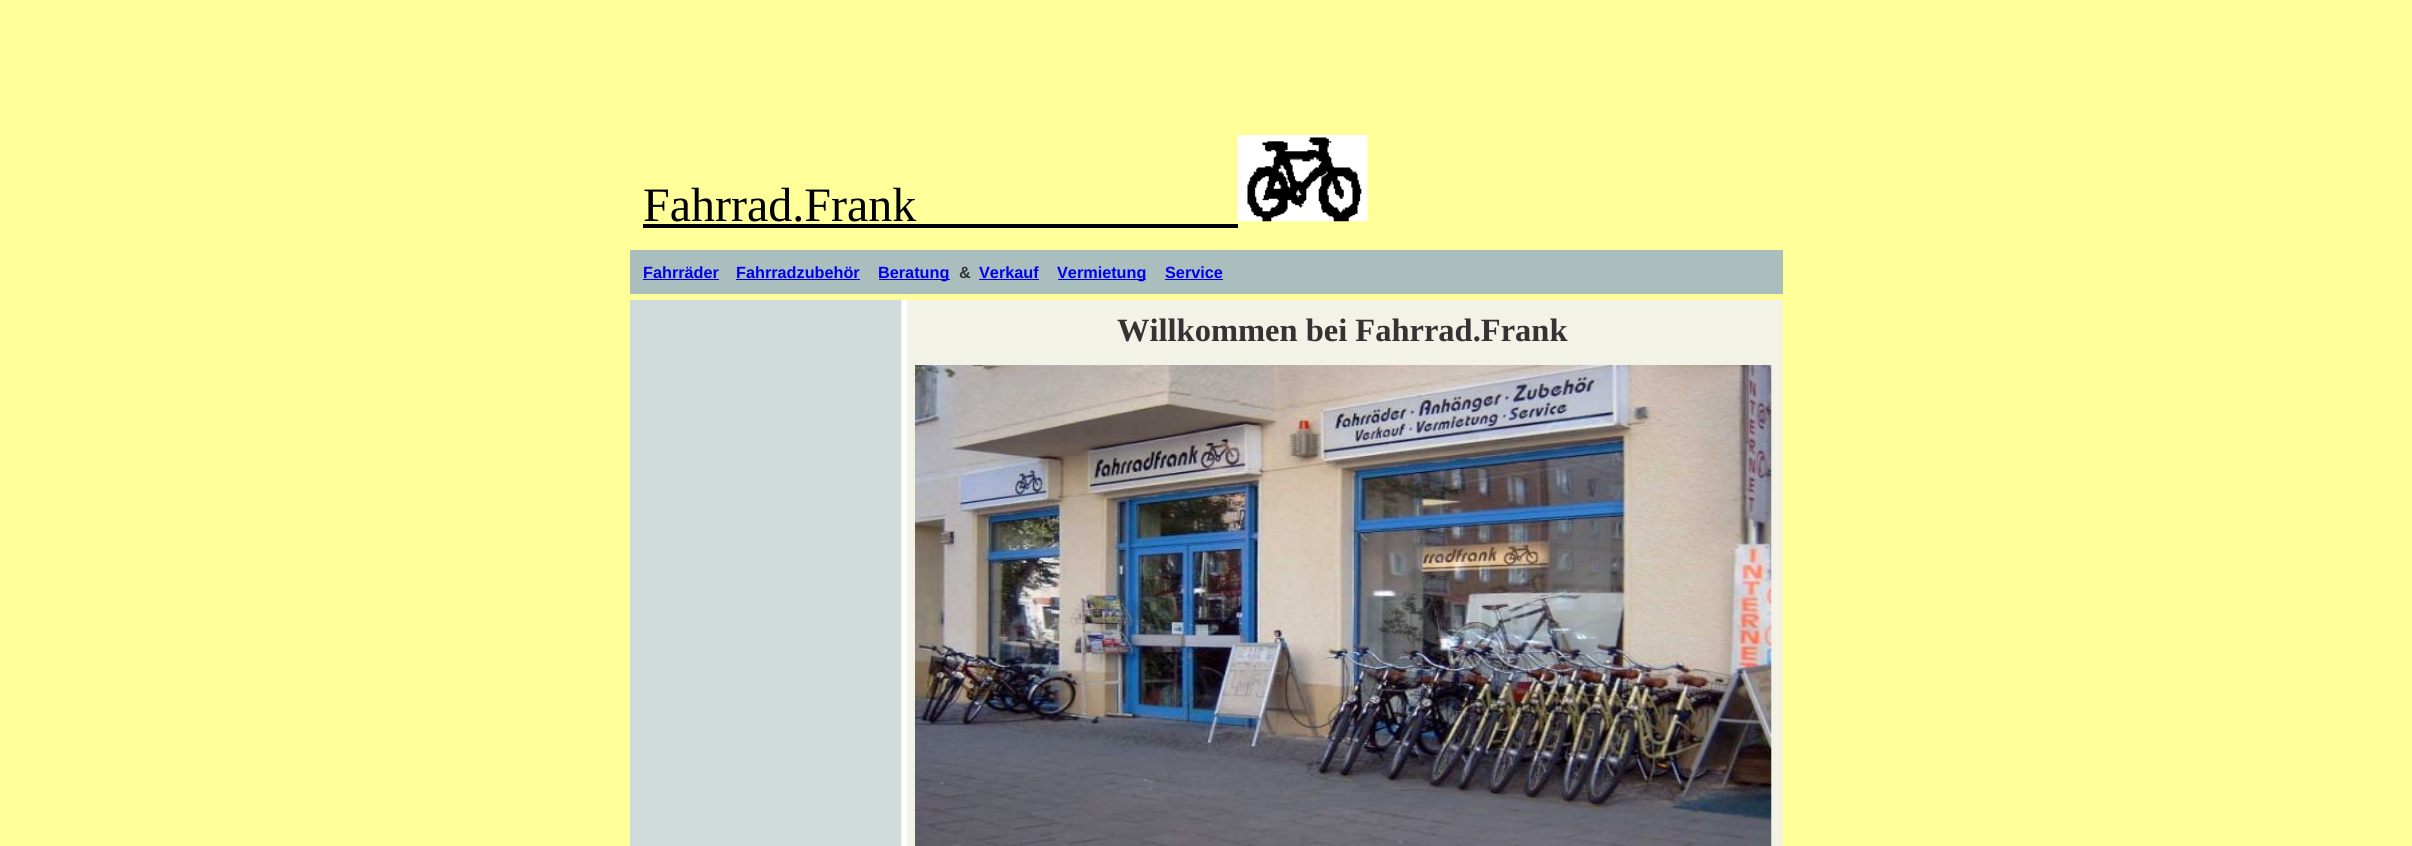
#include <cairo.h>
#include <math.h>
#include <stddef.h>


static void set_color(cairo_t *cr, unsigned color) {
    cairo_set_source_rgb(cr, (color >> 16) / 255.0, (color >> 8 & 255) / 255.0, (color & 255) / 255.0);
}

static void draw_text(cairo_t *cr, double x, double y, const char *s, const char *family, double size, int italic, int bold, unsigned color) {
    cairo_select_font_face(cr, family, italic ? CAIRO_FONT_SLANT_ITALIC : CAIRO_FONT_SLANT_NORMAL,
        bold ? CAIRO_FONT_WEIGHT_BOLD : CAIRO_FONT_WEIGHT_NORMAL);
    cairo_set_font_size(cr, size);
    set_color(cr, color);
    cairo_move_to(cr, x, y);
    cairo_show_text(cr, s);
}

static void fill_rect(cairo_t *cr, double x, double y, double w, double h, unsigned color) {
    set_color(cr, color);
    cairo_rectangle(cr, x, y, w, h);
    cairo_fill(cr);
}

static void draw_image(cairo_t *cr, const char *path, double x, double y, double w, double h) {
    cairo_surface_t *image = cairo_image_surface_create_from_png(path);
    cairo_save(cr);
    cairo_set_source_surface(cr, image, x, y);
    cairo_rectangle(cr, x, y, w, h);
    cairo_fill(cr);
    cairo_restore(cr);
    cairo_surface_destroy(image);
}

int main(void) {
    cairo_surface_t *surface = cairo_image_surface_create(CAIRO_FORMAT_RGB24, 2412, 846);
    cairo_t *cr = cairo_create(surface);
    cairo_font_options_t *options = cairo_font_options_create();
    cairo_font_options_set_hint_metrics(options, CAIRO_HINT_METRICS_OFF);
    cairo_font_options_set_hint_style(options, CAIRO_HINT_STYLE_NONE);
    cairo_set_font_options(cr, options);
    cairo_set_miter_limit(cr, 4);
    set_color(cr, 0xFFFF99);
    cairo_paint(cr);
    draw_text(cr, 643, 221, "Fahrrad.Frank", "Liberation Serif", 48, 0, 0, 0x000000);
    fill_rect(cr, 643, 224, 595, 4, 0x000000);
    draw_image(cr, "assets/img1.png", 1237, 135, 131, 87);
    fill_rect(cr, 630, 250, 1153, 44, 0xABBEBE);
    draw_text(cr, 643, 278, "Fahrräder", "Liberation Sans", 16.25, 0, 1, 0x0000EE);
    fill_rect(cr, 643, 279, 76, 1, 0x0000EE);
    draw_text(cr, 736, 278, "Fahrradzubehör", "Liberation Sans", 16.25, 0, 1, 0x0000EE);
    fill_rect(cr, 736, 279, 124, 1, 0x0000EE);
    fill_rect(cr, 879, 279, 71, 1, 0x0000EE);
    draw_text(cr, 878, 278, "Beratung", "Liberation Sans", 16.25, 0, 1, 0x0000EE);
    draw_text(cr, 959, 278, "&", "Liberation Sans", 16.25, 0, 1, 0x333333);
    draw_text(cr, 979, 278, "Verkauf", "Liberation Sans", 16.25, 0, 1, 0x0000EE);
    fill_rect(cr, 979, 279, 60, 1, 0x0000EE);
    fill_rect(cr, 1058, 279, 88, 1, 0x0000EE);
    draw_text(cr, 1057, 278, "Vermietung", "Liberation Sans", 16.25, 0, 1, 0x0000EE);
    draw_text(cr, 1165, 278, "Service", "Liberation Sans", 16.25, 0, 1, 0x0000EE);
    fill_rect(cr, 1165, 279, 58, 1, 0x0000EE);
    draw_image(cr, "assets/img2.png", 630, 300, 1153, 546);
    draw_text(cr, 1117, 341, "Willkommen bei Fahrrad.Frank", "Liberation Serif", 32.5, 0, 1, 0x333333);
    draw_image(cr, "assets/img3.png", 915, 365, 857, 481);
    cairo_surface_write_to_png(surface, "output.png");
    cairo_font_options_destroy(options);
    cairo_destroy(cr);
    cairo_surface_destroy(surface);
    return 0;
}
